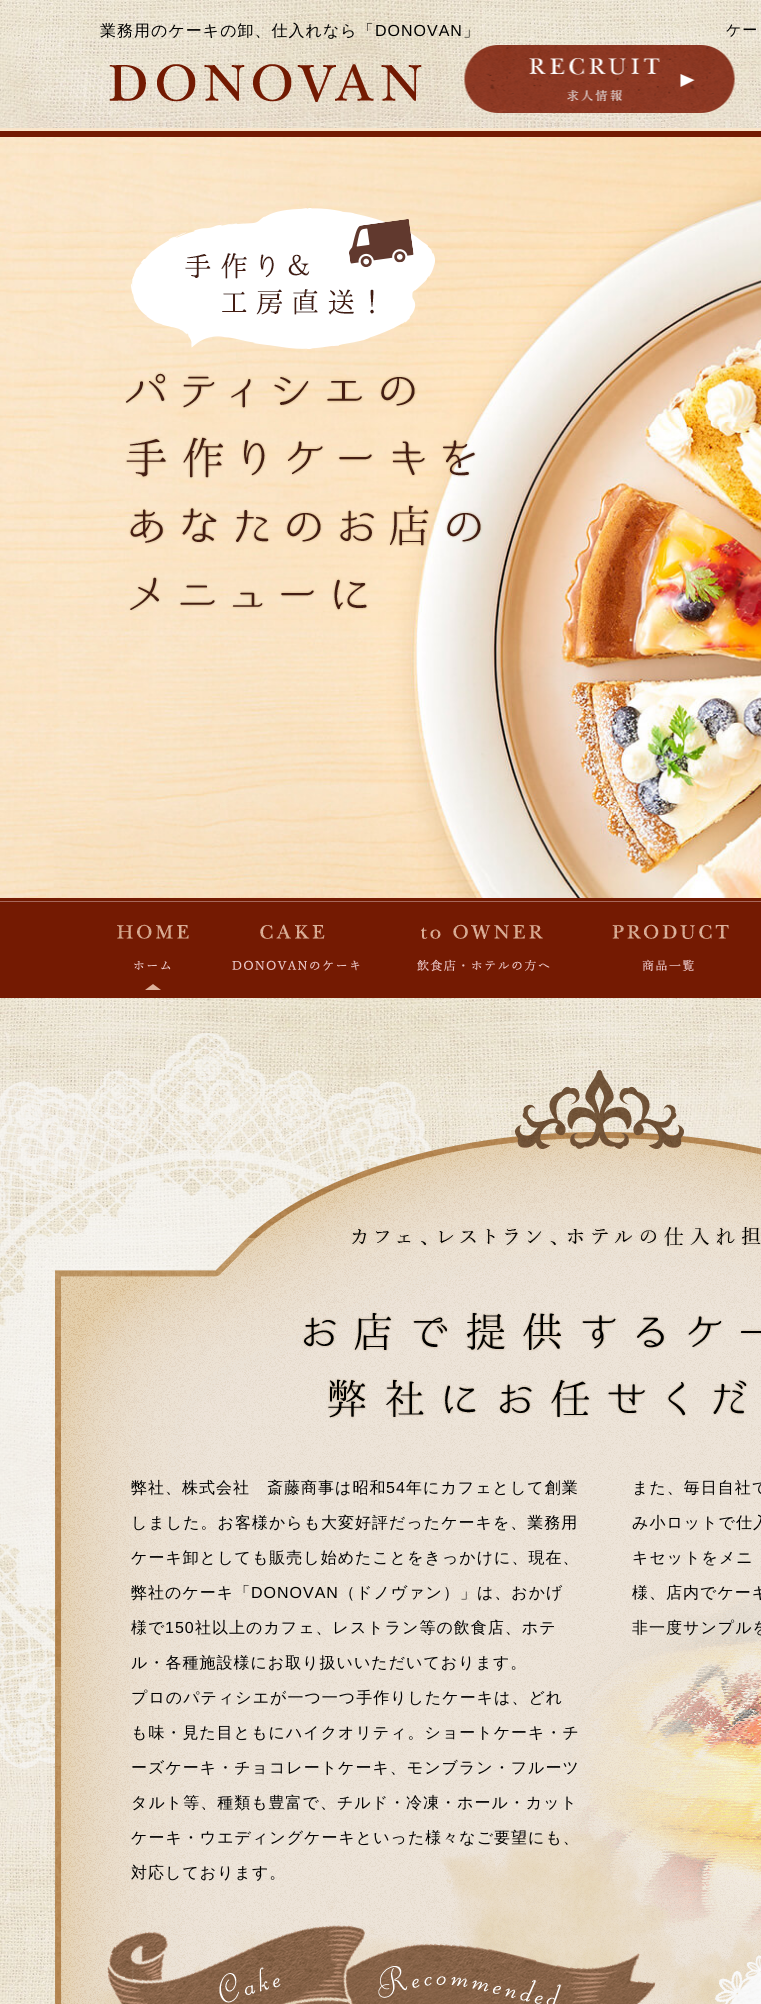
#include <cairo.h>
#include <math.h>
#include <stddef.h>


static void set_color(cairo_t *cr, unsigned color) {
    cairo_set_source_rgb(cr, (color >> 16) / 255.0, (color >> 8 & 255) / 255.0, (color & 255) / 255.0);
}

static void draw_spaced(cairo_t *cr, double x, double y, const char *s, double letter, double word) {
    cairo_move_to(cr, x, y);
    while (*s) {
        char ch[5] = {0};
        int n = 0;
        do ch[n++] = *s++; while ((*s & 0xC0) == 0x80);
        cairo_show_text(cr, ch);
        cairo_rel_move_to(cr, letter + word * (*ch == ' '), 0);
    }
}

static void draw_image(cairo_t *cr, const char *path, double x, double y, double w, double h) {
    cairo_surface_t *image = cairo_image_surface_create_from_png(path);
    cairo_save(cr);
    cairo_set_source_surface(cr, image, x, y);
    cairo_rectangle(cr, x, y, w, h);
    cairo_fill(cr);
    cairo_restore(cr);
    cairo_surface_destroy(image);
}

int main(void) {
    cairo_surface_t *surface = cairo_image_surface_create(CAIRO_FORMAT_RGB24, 761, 2004);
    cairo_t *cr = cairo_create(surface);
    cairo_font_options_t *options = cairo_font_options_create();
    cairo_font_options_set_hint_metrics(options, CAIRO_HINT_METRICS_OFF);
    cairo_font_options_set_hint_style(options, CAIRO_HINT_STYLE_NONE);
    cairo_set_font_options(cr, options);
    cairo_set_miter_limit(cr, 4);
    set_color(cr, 0xFFFFFF);
    cairo_paint(cr);
    draw_image(cr, "assets/img1.png", 0, 0, 761, 2004);
    draw_image(cr, "assets/img2.png", 0, 898, 761, 100);
    cairo_select_font_face(cr, "WenQuanYi Zen Hei Medium", CAIRO_FONT_SLANT_NORMAL, CAIRO_FONT_WEIGHT_NORMAL);
    cairo_set_font_size(cr, 16);
    set_color(cr, 0x000000);
    draw_spaced(cr, 100, 36, "業務用のケーキの卸、仕入れなら「", 1, 0);
    cairo_select_font_face(cr, "Liberation Sans", CAIRO_FONT_SLANT_NORMAL, CAIRO_FONT_WEIGHT_NORMAL);
    draw_spaced(cr, 375, 36, "DONOVAN", 1, 0);
    cairo_select_font_face(cr, "WenQuanYi Zen Hei Medium", CAIRO_FONT_SLANT_NORMAL, CAIRO_FONT_WEIGHT_NORMAL);
    draw_spaced(cr, 463, 36, "」", 1, 0);
    cairo_set_font_size(cr, 15);
    draw_spaced(cr, 726, 35, "ケー", 1, 0);
    draw_image(cr, "assets/img3.png", 109, 64, 313, 38);
    draw_image(cr, "assets/img4.png", 464, 45, 271, 68);
    draw_image(cr, "assets/img5.png", 117, 924, 72, 66);
    draw_image(cr, "assets/img6.png", 232, 924, 128, 47);
    draw_image(cr, "assets/img7.png", 417, 924, 133, 48);
    draw_image(cr, "assets/img8.png", 612, 924, 117, 47);
    draw_image(cr, "assets/img9.png", 0, 128, 761, 9);
    draw_image(cr, "assets/img10.png", 0, 137, 761, 761);
    draw_image(cr, "assets/img11.png", 125, 208, 358, 403);
    draw_image(cr, "assets/img12.png", 0, 1033, 431, 736);
    draw_image(cr, "assets/img13.png", 55, 1070, 706, 934);
    draw_image(cr, "assets/img14.png", 302, 1226, 459, 193);
    cairo_set_font_size(cr, 16);
    draw_spaced(cr, 131, 1493, "弊社、株式会社　斎藤商事は昭和", 1, 0);
    cairo_select_font_face(cr, "Liberation Sans", CAIRO_FONT_SLANT_NORMAL, CAIRO_FONT_WEIGHT_NORMAL);
    draw_spaced(cr, 386, 1493, "54", 1, 0);
    cairo_select_font_face(cr, "WenQuanYi Zen Hei Medium", CAIRO_FONT_SLANT_NORMAL, CAIRO_FONT_WEIGHT_NORMAL);
    draw_spaced(cr, 406, 1493, "年にカフェとして創業", 1, 0);
    draw_spaced(cr, 131, 1528, "しました。お客様からも大変好評だったケーキを、業務用", 1, 0);
    draw_spaced(cr, 131, 1563, "ケーキ卸としても販売し始めたことをきっかけに、現在、", 1, 0);
    draw_spaced(cr, 131, 1598, "弊社のケーキ「", 1, 0);
    cairo_select_font_face(cr, "Liberation Sans", CAIRO_FONT_SLANT_NORMAL, CAIRO_FONT_WEIGHT_NORMAL);
    draw_spaced(cr, 251, 1598, "DONOVAN", 1, 0);
    cairo_select_font_face(cr, "WenQuanYi Zen Hei Medium", CAIRO_FONT_SLANT_NORMAL, CAIRO_FONT_WEIGHT_NORMAL);
    draw_spaced(cr, 339, 1598, "（ドノヴァン）」は、おかげ", 1, 0);
    draw_spaced(cr, 131, 1633, "様で", 1, 0);
    cairo_select_font_face(cr, "Liberation Sans", CAIRO_FONT_SLANT_NORMAL, CAIRO_FONT_WEIGHT_NORMAL);
    draw_spaced(cr, 165, 1633, "150", 1, 0);
    cairo_select_font_face(cr, "WenQuanYi Zen Hei Medium", CAIRO_FONT_SLANT_NORMAL, CAIRO_FONT_WEIGHT_NORMAL);
    draw_spaced(cr, 195, 1633, "社以上のカフェ、レストラン等の飲食店、ホテ", 1, 0);
    draw_spaced(cr, 131, 1668, "ル・各種施設様にお取り扱いいただいております。", 1, 0);
    draw_spaced(cr, 131, 1703, "プロのパティシエが一つ一つ手作りしたケーキは、どれ", 1, 0);
    draw_spaced(cr, 131, 1738, "も味・見た目ともにハイクオリティ。ショートケーキ・チ", 1, 0);
    draw_spaced(cr, 131, 1773, "ーズケーキ・チョコレートケーキ、モンブラン・フルーツ", 1, 0);
    draw_spaced(cr, 131, 1808, "タルト等、種類も豊富で、チルド・冷凍・ホール・カット", 1, 0);
    draw_spaced(cr, 131, 1843, "ケーキ・ウエディングケーキといった様々なご要望にも、", 1, 0);
    draw_spaced(cr, 131, 1878, "対応しております。", 1, 0);
    draw_spaced(cr, 632, 1493, "また、毎日自社で", 1, 0);
    draw_spaced(cr, 632, 1528, "み小ロットで仕入", 1, 0);
    draw_spaced(cr, 632, 1563, "キセットをメニ", 1, 0);
    draw_spaced(cr, 632, 1598, "様、店内でケーキ", 1, 0);
    draw_spaced(cr, 632, 1633, "非一度サンプルを", 1, 0);
    draw_image(cr, "assets/img15.png", 107, 1925, 549, 79);
    draw_image(cr, "assets/img16.png", 715, 1955, 46, 49);
    cairo_surface_write_to_png(surface, "output.png");
    cairo_font_options_destroy(options);
    cairo_destroy(cr);
    cairo_surface_destroy(surface);
    return 0;
}
